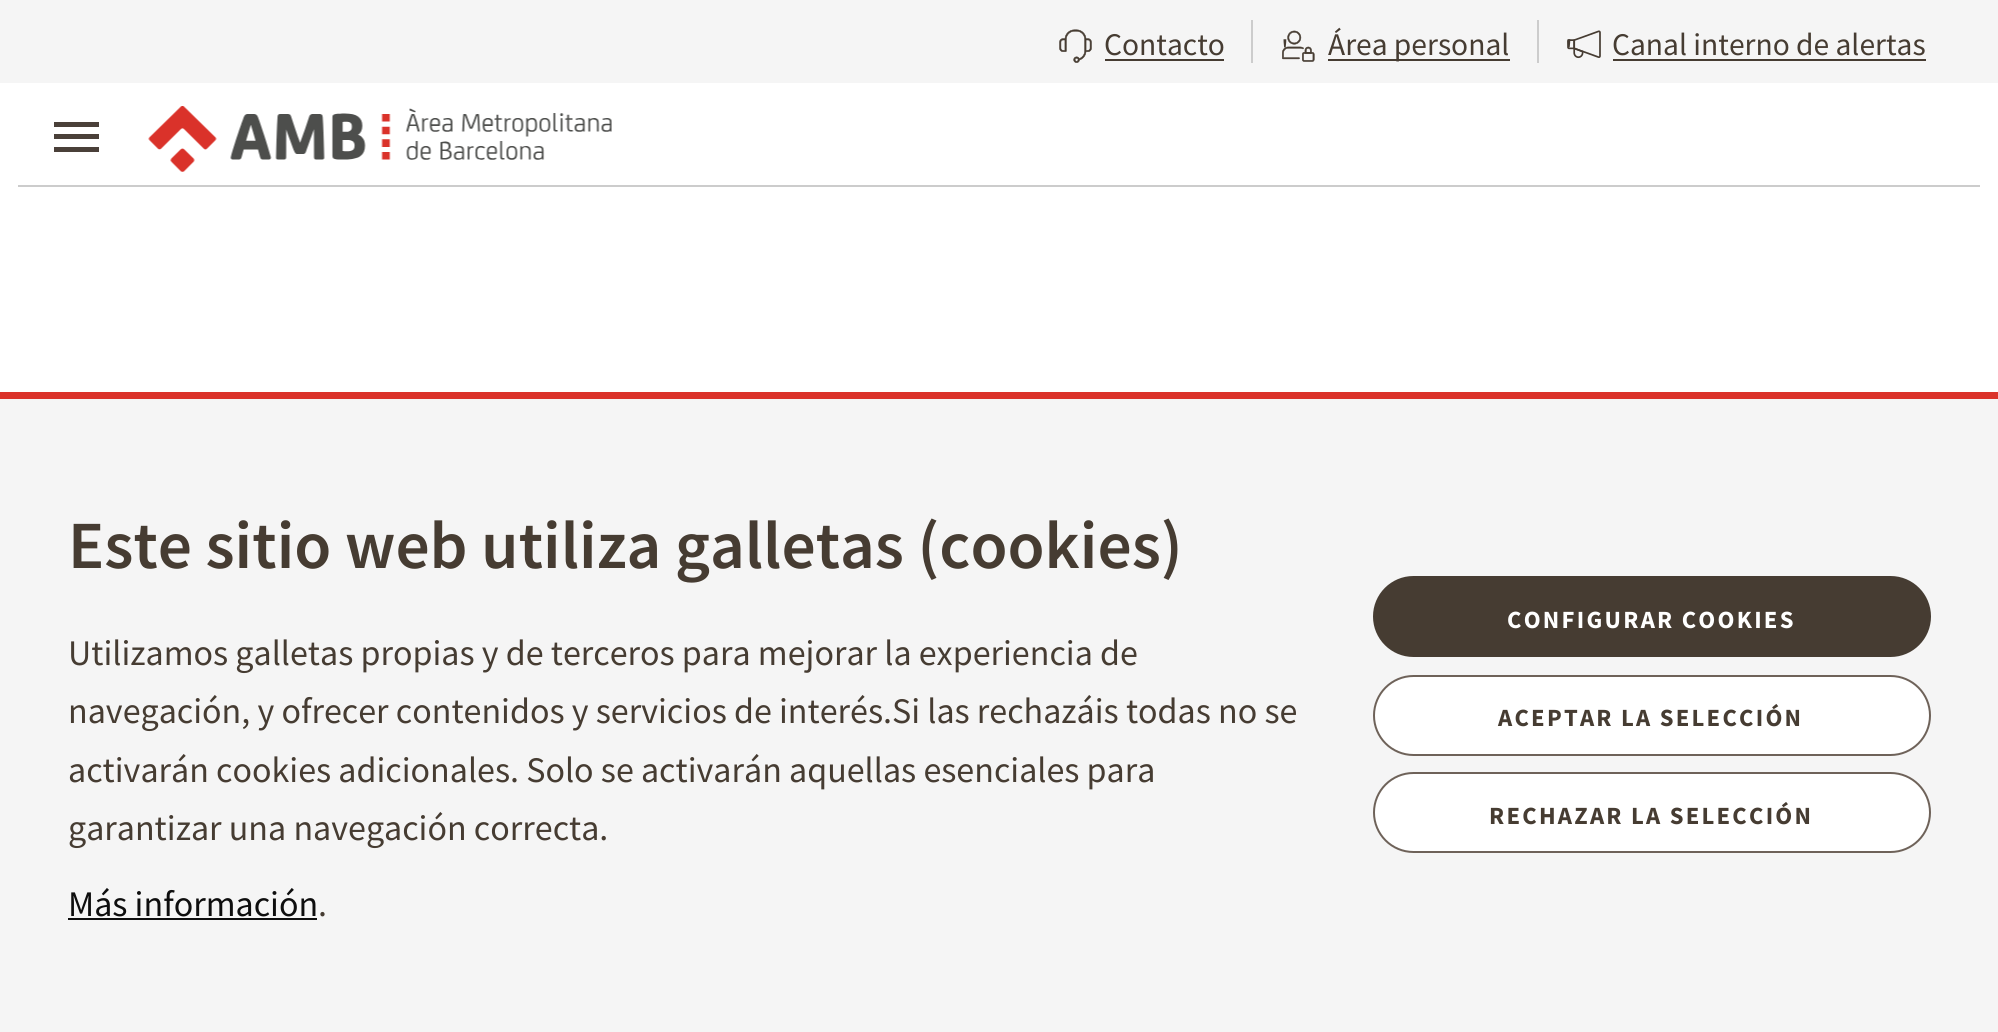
#include <cairo.h>
#include <math.h>
#include <stddef.h>


static void set_color(cairo_t *cr, unsigned color) {
    cairo_set_source_rgb(cr, (color >> 16) / 255.0, (color >> 8 & 255) / 255.0, (color & 255) / 255.0);
}

static void draw_text(cairo_t *cr, double x, double y, const char *s, const char *family, double size, int italic, int bold, unsigned color) {
    cairo_select_font_face(cr, family, italic ? CAIRO_FONT_SLANT_ITALIC : CAIRO_FONT_SLANT_NORMAL,
        bold ? CAIRO_FONT_WEIGHT_BOLD : CAIRO_FONT_WEIGHT_NORMAL);
    cairo_set_font_size(cr, size);
    set_color(cr, color);
    cairo_move_to(cr, x, y);
    cairo_show_text(cr, s);
}

static void draw_spaced(cairo_t *cr, double x, double y, const char *s, double letter, double word) {
    cairo_move_to(cr, x, y);
    while (*s) {
        char ch[5] = {0};
        int n = 0;
        do ch[n++] = *s++; while ((*s & 0xC0) == 0x80);
        cairo_show_text(cr, ch);
        cairo_rel_move_to(cr, letter + word * (*ch == ' '), 0);
    }
}

static void fill_rect(cairo_t *cr, double x, double y, double w, double h, unsigned color) {
    set_color(cr, color);
    cairo_rectangle(cr, x, y, w, h);
    cairo_fill(cr);
}

static void rounded_rect(cairo_t *cr, double x, double y, double w, double h, double r) {
    cairo_new_sub_path(cr);
    cairo_arc(cr, x + w - r, y + h - r, r, 0, M_PI / 2);
    cairo_arc(cr, x + r, y + h - r, r, M_PI / 2, M_PI);
    cairo_arc(cr, x + r, y + r, r, M_PI, 1.5 * M_PI);
    cairo_arc(cr, x + w - r, y + r, r, 1.5 * M_PI, 2 * M_PI);
    cairo_close_path(cr);
}

static void draw_image(cairo_t *cr, const char *path, double x, double y, double w, double h) {
    cairo_surface_t *image = cairo_image_surface_create_from_png(path);
    cairo_save(cr);
    cairo_set_source_surface(cr, image, x, y);
    cairo_rectangle(cr, x, y, w, h);
    cairo_fill(cr);
    cairo_restore(cr);
    cairo_surface_destroy(image);
}

int main(void) {
    cairo_surface_t *surface = cairo_image_surface_create(CAIRO_FORMAT_RGB24, 1998, 1032);
    cairo_t *cr = cairo_create(surface);
    cairo_font_options_t *options = cairo_font_options_create();
    cairo_font_options_set_hint_metrics(options, CAIRO_HINT_METRICS_OFF);
    cairo_font_options_set_hint_style(options, CAIRO_HINT_STYLE_NONE);
    cairo_set_font_options(cr, options);
    cairo_set_miter_limit(cr, 4);
    set_color(cr, 0xFFFFFF);
    cairo_paint(cr);
    fill_rect(cr, 0, 0, 1998, 83, 0xF5F5F5);
    fill_rect(cr, 1251, 20, 2, 43, 0xCCCCCC);
    draw_image(cr, "assets/img1.png", 1059, 29, 33, 34);
    draw_text(cr, 1104, 55, "Contacto", "Source Sans Pro", 31.5, 0, 0, 0x463C32);
    fill_rect(cr, 1105, 59, 119, 2, 0x463C32);
    fill_rect(cr, 1537, 20, 2, 43, 0xCCCCCC);
    draw_image(cr, "assets/img2.png", 1282, 30, 33, 32);
    draw_text(cr, 1281, 61, "'", "Source Sans Pro", 31.5, 0, 0, 0x463C32);
    fill_rect(cr, 1328, 59, 182, 2, 0x463C32);
    draw_text(cr, 1328, 55, "Área personal", "Source Sans Pro", 31.5, 0, 0, 0x463C32);
    draw_image(cr, "assets/img3.png", 1567, 30, 34, 29);
    draw_text(cr, 1565, 61, "'", "Source Sans Pro", 31.5, 0, 0, 0x463C32);
    draw_text(cr, 1612, 55, "Canal interno de alertas", "Source Sans Pro", 31.5, 0, 0, 0x463C32);
    fill_rect(cr, 1613, 59, 313, 2, 0x463C32);
    fill_rect(cr, 18, 185, 1962, 2, 0xCCCCCC);
    set_color(cr, 0x4A4039);
    cairo_new_path(cr);
    cairo_move_to(cr, 54, 152);
    cairo_line_to(cr, 54, 147);
    cairo_line_to(cr, 99, 147);
    cairo_line_to(cr, 99, 152);
    cairo_close_path(cr);
    cairo_move_to(cr, 54, 139);
    cairo_line_to(cr, 54, 134);
    cairo_line_to(cr, 99, 134);
    cairo_line_to(cr, 99, 139);
    cairo_close_path(cr);
    cairo_move_to(cr, 54, 122);
    cairo_line_to(cr, 99, 122);
    cairo_line_to(cr, 99, 127);
    cairo_line_to(cr, 54, 127);
    cairo_close_path(cr);
    cairo_fill(cr);
    draw_image(cr, "assets/img4.png", 148, 106, 464, 66);
    fill_rect(cr, 0, 399, 1998, 633, 0xF5F5F5);
    fill_rect(cr, 0, 392, 1998, 7, 0xDB322A);
    draw_text(cr, 68, 568, "Este sitio web utiliza galletas (cookies)", "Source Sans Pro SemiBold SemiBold", 67.5, 0, 0, 0x463C32);
    draw_text(cr, 68, 665, "Utilizamos galletas propias y de terceros para mejorar la experiencia de", "Source Sans Pro", 36, 0, 0, 0x463C32);
    draw_text(cr, 68, 723, "navegación, y ofrecer contenidos y servicios de interés.Si las rechazáis todas no se", "Source Sans Pro", 36, 0, 0, 0x463C32);
    draw_text(cr, 68, 782, "activarán cookies adicionales. Solo se activarán aquellas esenciales para", "Source Sans Pro", 36, 0, 0, 0x463C32);
    draw_text(cr, 68, 840, "garantizar una navegación correcta.", "Source Sans Pro", 36, 0, 0, 0x463C32);
    draw_text(cr, 68, 916, "Más información", "Source Sans Pro", 36, 0, 0, 0x0E0E0E);
    fill_rect(cr, 68, 918, 249, 2, 0x0E0E0E);
    draw_text(cr, 318, 916, ".", "Source Sans Pro", 36, 0, 0, 0x463C32);
    rounded_rect(cr, 1374, 577, 556, 79, 39.5);
    cairo_fill_preserve(cr);
    cairo_stroke(cr);
    cairo_select_font_face(cr, "Source Sans Pro", CAIRO_FONT_SLANT_NORMAL, CAIRO_FONT_WEIGHT_BOLD);
    cairo_set_font_size(cr, 24.75);
    set_color(cr, 0xFFFFFF);
    draw_spaced(cr, 1507, 628, "CONFIGURAR COOKIES", 2.25, 0);
    rounded_rect(cr, 1374, 676, 556, 79, 39.5);
    cairo_fill_preserve(cr);
    set_color(cr, 0x6E6259);
    cairo_stroke(cr);
    set_color(cr, 0x463C32);
    draw_spaced(cr, 1498, 726, "ACEPTAR LA SELECCIÓN", 2.25, 0);
    set_color(cr, 0xFFFFFF);
    rounded_rect(cr, 1374, 773, 556, 79, 39.5);
    cairo_fill_preserve(cr);
    set_color(cr, 0x6E6259);
    cairo_stroke(cr);
    set_color(cr, 0x463C32);
    draw_spaced(cr, 1489, 824, "RECHAZAR LA SELECCIÓN", 2.25, 0);
    cairo_surface_write_to_png(surface, "output.png");
    cairo_font_options_destroy(options);
    cairo_destroy(cr);
    cairo_surface_destroy(surface);
    return 0;
}
